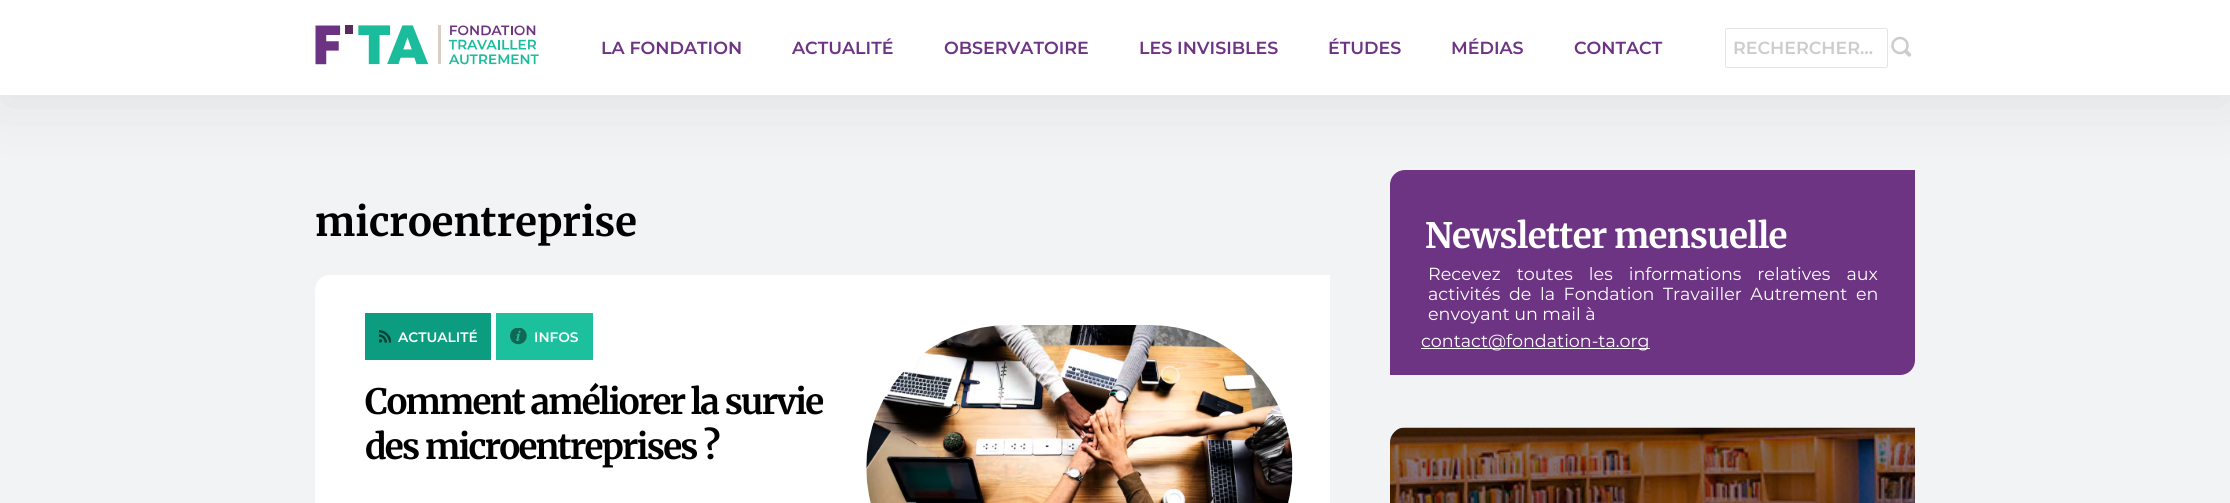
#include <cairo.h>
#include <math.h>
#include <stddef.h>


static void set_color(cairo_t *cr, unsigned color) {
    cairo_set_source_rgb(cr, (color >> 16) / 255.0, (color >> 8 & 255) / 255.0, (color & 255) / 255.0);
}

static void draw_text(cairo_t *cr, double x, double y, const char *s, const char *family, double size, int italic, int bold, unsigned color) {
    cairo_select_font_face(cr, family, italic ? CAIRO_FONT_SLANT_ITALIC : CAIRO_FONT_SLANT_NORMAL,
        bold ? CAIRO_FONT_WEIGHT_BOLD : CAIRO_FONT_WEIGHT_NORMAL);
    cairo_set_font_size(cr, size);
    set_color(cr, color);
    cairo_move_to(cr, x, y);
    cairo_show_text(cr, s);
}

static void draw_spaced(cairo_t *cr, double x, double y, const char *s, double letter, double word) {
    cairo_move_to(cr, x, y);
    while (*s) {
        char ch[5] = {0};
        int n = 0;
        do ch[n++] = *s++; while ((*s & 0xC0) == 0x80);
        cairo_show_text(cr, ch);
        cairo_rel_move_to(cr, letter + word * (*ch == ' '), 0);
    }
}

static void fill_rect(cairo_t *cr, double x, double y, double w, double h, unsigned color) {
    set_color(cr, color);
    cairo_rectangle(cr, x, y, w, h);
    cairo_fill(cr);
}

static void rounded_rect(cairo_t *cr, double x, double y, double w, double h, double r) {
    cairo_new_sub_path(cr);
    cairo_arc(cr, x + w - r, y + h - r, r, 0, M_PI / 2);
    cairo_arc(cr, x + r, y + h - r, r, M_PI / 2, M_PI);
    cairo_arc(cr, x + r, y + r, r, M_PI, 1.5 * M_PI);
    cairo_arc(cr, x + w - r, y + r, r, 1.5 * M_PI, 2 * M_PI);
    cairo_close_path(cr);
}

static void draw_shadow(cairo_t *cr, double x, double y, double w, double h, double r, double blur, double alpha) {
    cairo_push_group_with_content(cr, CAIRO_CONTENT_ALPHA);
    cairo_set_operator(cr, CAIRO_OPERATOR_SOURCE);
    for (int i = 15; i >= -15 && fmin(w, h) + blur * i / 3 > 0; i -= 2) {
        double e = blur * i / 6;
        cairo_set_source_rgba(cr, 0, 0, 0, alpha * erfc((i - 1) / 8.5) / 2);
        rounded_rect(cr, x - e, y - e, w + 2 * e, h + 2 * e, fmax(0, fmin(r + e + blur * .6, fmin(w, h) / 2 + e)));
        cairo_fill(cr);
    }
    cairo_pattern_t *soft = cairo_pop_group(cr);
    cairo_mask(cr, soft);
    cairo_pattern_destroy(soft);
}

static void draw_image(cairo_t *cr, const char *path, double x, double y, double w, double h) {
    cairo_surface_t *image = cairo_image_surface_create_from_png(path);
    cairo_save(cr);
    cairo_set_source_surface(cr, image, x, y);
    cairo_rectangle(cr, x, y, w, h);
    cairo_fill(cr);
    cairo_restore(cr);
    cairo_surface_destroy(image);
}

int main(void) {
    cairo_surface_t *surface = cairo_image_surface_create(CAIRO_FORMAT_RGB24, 2230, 503);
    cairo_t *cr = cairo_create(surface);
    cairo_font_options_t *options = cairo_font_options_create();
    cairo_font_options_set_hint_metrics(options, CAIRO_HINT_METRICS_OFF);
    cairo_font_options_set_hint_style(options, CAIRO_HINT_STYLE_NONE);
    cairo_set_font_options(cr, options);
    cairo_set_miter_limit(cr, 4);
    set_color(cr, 0xF2F3F5);
    cairo_paint(cr);
    set_color(cr, 0x6D3483);
    cairo_new_path(cr);
    cairo_move_to(cr, 1405, 170);
    cairo_line_to(cr, 1915, 170);
    cairo_line_to(cr, 1915, 360);
    cairo_curve_to(cr, 1915, 368.5, 1908.5, 375, 1900, 375);
    cairo_line_to(cr, 1390, 375);
    cairo_line_to(cr, 1390, 185);
    cairo_curve_to(cr, 1390, 176.5, 1396.5, 170, 1405, 170);
    cairo_close_path(cr);
    cairo_fill(cr);
    set_color(cr, 0xC6C6C6);
    draw_shadow(cr, 0, 9, 2230, 95, 0, 28, 0.4);
    fill_rect(cr, 0, 0, 2230, 95, 0xFFFFFF);
    draw_image(cr, "assets/img1.png", 315, 25, 224, 40);
    draw_text(cr, 601, 54, "LA FONDATION", "Montserrat SemiBold", 17.5, 0, 0, 0x6D3483);
    draw_text(cr, 792, 54, "ACTUALITÉ", "Montserrat SemiBold", 17.5, 0, 0, 0x6D3483);
    draw_text(cr, 944, 54, "OBSERVATOIRE", "Montserrat SemiBold", 17.5, 0, 0, 0x6D3483);
    draw_text(cr, 1139, 54, "LES INVISIBLES", "Montserrat SemiBold", 17.5, 0, 0, 0x6D3483);
    draw_text(cr, 1328, 54, "ÉTUDES", "Montserrat SemiBold", 17.5, 0, 0, 0x6D3483);
    draw_text(cr, 1451, 54, "MÉDIAS", "Montserrat SemiBold", 17.5, 0, 0, 0x6D3483);
    draw_text(cr, 1574, 54, "CONTACT", "Montserrat SemiBold", 17.5, 0, 0, 0x6D3483);
    rounded_rect(cr, 1725.5, 28.5, 162, 39, 2);
    set_color(cr, 0xE4E4E4);
    cairo_set_line_width(cr, 1);
    cairo_stroke(cr);
    draw_text(cr, 1733, 54, "RECHERCHER…", "Montserrat SemiBold", 17.5, 0, 0, 0xCCCCCC);
    draw_image(cr, "assets/img2.png", 1891, 36, 21, 21);
    draw_text(cr, 315, 236, "microentreprise", "Merriweather", 40, 0, 1, 0x000000);
    set_color(cr, 0xFFFFFF);
    cairo_new_path(cr);
    cairo_move_to(cr, 330, 275);
    cairo_line_to(cr, 1330, 275);
    cairo_line_to(cr, 1330, 503);
    cairo_curve_to(cr, 1330, 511.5, 1323.5, 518, 1315, 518);
    cairo_line_to(cr, 315, 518);
    cairo_line_to(cr, 315, 290);
    cairo_curve_to(cr, 315, 281.5, 321.5, 275, 330, 275);
    cairo_close_path(cr);
    cairo_fill(cr);
    fill_rect(cr, 365, 313, 126, 47, 0x0C9D80);
    draw_image(cr, "assets/img3.png", 379, 330, 12, 13);
    draw_text(cr, 398, 342, "ACTUALITÉ", "Montserrat SemiBold", 13.75, 0, 0, 0xFFFFFF);
    fill_rect(cr, 496, 313, 97, 47, 0x1CC09D);
    draw_image(cr, "assets/img4.png", 510, 328, 17, 17);
    draw_text(cr, 534, 342, "INFOS", "Montserrat SemiBold", 13.75, 0, 0, 0xFFFFFF);
    cairo_select_font_face(cr, "Merriweather", CAIRO_FONT_SLANT_NORMAL, CAIRO_FONT_WEIGHT_BOLD);
    cairo_set_font_size(cr, 35);
    set_color(cr, 0x000000);
    draw_spaced(cr, 365, 414, "Comment améliorer la survie", -1.75, 0);
    draw_spaced(cr, 365, 459, "des microentreprises ?", -1.75, 0);
    draw_image(cr, "assets/img5.png", 866, 325, 427, 178);
    set_color(cr, 0xFFFFFF);
    draw_spaced(cr, 1425, 248, "Newsletter mensuelle", -0.7, 0);
    cairo_select_font_face(cr, "Montserrat", CAIRO_FONT_SLANT_NORMAL, CAIRO_FONT_WEIGHT_NORMAL);
    cairo_set_font_size(cr, 17.5);
    draw_spaced(cr, 1428, 280, "Recevez toutes les informations relatives aux", 0, 11.5);
    draw_spaced(cr, 1428, 300, "activités de la Fondation Travailler Autrement en", 0, 4);
    draw_text(cr, 1428, 320, "envoyant un mail à", "Montserrat", 17.5, 0, 0, 0xFFFFFF);
    fill_rect(cr, 1421, 348, 229, 1, 0xFFFFFF);
    draw_text(cr, 1421, 347, "contact@fondation-ta.org", "Montserrat", 17.5, 0, 0, 0xFFFFFF);
    draw_image(cr, "assets/img6.png", 1390, 427, 525, 76);
    cairo_surface_write_to_png(surface, "output.png");
    cairo_font_options_destroy(options);
    cairo_destroy(cr);
    cairo_surface_destroy(surface);
    return 0;
}
